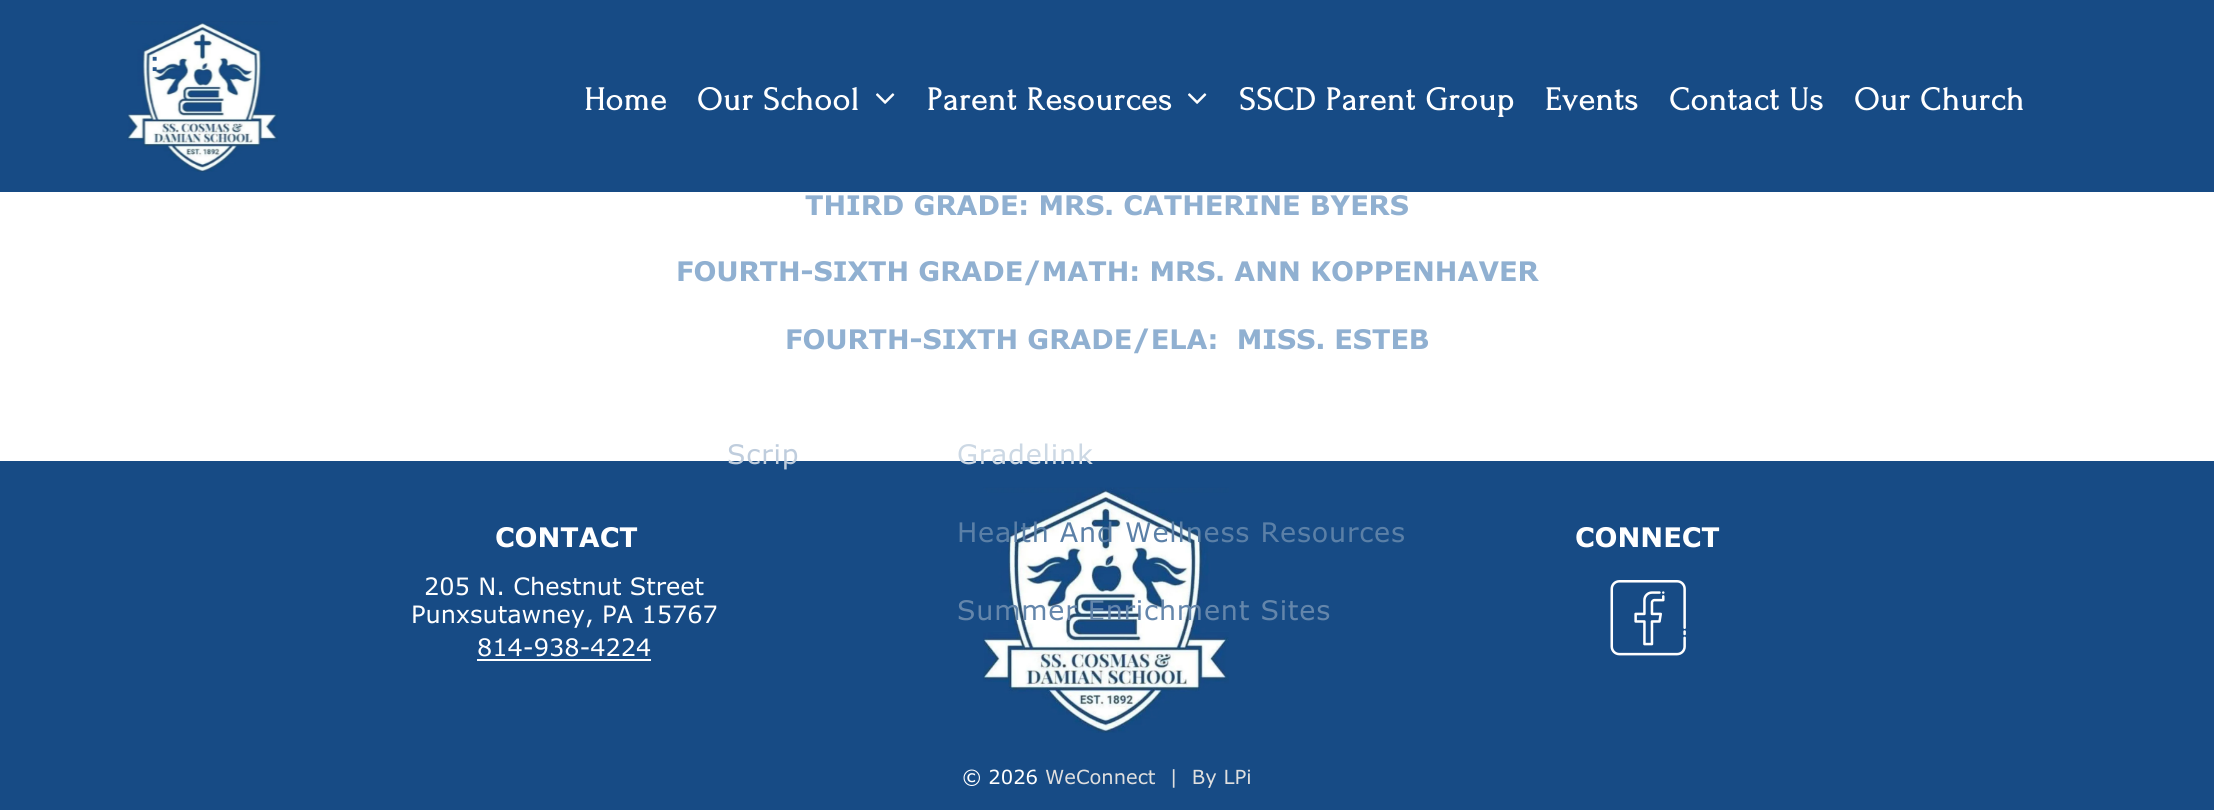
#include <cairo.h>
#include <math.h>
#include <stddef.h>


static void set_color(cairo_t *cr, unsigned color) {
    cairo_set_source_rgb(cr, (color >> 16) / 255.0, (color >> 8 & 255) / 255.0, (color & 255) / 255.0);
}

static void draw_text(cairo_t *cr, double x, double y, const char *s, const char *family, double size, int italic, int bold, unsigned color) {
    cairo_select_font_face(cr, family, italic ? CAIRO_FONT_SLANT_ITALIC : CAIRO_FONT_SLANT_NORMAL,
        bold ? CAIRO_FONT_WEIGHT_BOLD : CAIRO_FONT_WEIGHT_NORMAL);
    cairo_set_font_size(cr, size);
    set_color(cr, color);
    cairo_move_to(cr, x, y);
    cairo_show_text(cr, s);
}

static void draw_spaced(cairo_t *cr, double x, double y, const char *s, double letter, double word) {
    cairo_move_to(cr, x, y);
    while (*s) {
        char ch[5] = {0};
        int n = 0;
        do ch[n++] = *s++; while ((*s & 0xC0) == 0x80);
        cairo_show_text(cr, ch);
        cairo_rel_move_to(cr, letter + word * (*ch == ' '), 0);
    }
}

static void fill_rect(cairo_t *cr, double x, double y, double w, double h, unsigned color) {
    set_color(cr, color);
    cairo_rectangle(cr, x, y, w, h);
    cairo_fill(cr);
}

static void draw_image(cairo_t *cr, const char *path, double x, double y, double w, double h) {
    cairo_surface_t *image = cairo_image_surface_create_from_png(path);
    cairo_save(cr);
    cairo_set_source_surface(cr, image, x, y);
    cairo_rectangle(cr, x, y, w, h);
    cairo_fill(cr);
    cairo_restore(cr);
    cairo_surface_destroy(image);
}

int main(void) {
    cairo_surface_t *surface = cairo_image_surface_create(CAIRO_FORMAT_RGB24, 2214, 810);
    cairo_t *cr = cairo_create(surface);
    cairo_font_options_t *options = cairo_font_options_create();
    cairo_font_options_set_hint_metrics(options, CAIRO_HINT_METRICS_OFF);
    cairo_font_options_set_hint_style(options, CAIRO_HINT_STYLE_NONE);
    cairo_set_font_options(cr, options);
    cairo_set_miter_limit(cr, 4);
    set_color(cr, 0xFFFFFF);
    cairo_paint(cr);
    fill_rect(cr, 0, 0, 2214, 192, 0x174B85);
    draw_image(cr, "assets/img1.png", 127, 21, 151, 151);
    draw_text(cr, 150, 71, ":", "Liberation Sans", 28, 0, 1, 0x26568C);
    cairo_select_font_face(cr, "Forum", CAIRO_FONT_SLANT_NORMAL, CAIRO_FONT_WEIGHT_BOLD);
    cairo_set_font_size(cr, 33);
    set_color(cr, 0xFFFFFF);
    draw_spaced(cr, 584, 110, "Home", 1, 0);
    draw_spaced(cr, 697, 110, "Our School", 1, 0);
    draw_image(cr, "assets/img2.png", 876, 93, 19, 11);
    fill_rect(cr, 0, 461, 2214, 349, 0x174B85);
    cairo_select_font_face(cr, "Verdana", CAIRO_FONT_SLANT_NORMAL, CAIRO_FONT_WEIGHT_NORMAL);
    cairo_set_font_size(cr, 27);
    set_color(cr, 0xBFCDDD);
    draw_spaced(cr, 727, 464, "Scrip", 0.8, 0);
    cairo_select_font_face(cr, "Forum", CAIRO_FONT_SLANT_NORMAL, CAIRO_FONT_WEIGHT_BOLD);
    cairo_set_font_size(cr, 33);
    set_color(cr, 0xFFFFFF);
    draw_spaced(cr, 1239, 110, "SSCD Parent Group", 1, 0);
    draw_spaced(cr, 1669, 110, "Contact Us", 1, 0);
    draw_spaced(cr, 1854, 110, "Our Church", 1, 0);
    draw_spaced(cr, 927, 110, "Parent Resources", 1, 0);
    draw_image(cr, "assets/img2.png", 1188, 93, 19, 11);
    cairo_select_font_face(cr, "Verdana", CAIRO_FONT_SLANT_NORMAL, CAIRO_FONT_WEIGHT_NORMAL);
    cairo_set_font_size(cr, 27);
    set_color(cr, 0xCCD8E4);
    draw_spaced(cr, 957, 464, "Gradelink", 0.8, 0);
    draw_image(cr, "assets/img3.png", 983, 487, 246, 246);
    set_color(cr, 0x5B80A7);
    draw_spaced(cr, 957, 542, "Health And Wellness Resources", 0.8, 0);
    set_color(cr, 0x6486AB);
    draw_spaced(cr, 957, 620, "Summer Enrichment Sites", 0.8, 0);
    cairo_select_font_face(cr, "Forum", CAIRO_FONT_SLANT_NORMAL, CAIRO_FONT_WEIGHT_BOLD);
    cairo_set_font_size(cr, 33);
    set_color(cr, 0xFFFFFF);
    draw_spaced(cr, 1545, 110, "Events", 1, 0);
    draw_text(cr, 805, 215, "THIRD GRADE: MRS. CATHERINE BYERS", "Verdana", 27, 0, 1, 0x90B0D1);
    draw_text(cr, 676, 281, "FOURTH-SIXTH GRADE/MATH: MRS. ANN KOPPENHAVER", "Verdana", 27, 0, 1, 0x90B0D1);
    draw_text(cr, 785, 349, "FOURTH-SIXTH GRADE/ELA:  MISS. ESTEB", "Verdana", 27, 0, 1, 0x90B0D1);
    draw_text(cr, 495, 547, "CONTACT", "Verdana", 27, 0, 1, 0xFFFFFF);
    draw_text(cr, 424, 595, "205 N. Chestnut Street", "Verdana", 24, 0, 0, 0xFFFFFF);
    draw_text(cr, 411, 623, "Punxsutawney, PA 15767", "Verdana", 24, 0, 0, 0xFFFFFF);
    draw_text(cr, 477, 656, "814-938-4224", "Verdana", 24, 0, 0, 0xFFFFFF);
    fill_rect(cr, 477, 659, 174, 2, 0xFFFFFF);
    draw_text(cr, 1575, 547, "CONNECT", "Verdana", 27, 0, 1, 0xFFFFFF);
    draw_image(cr, "assets/img4.png", 1610, 580, 76, 76);
    draw_text(cr, 962, 784, "© 2026", "Verdana", 19.5, 0, 0, 0xFFFFFF);
    draw_text(cr, 1045, 784, "WeConnect  |  By LPi", "Verdana", 19.5, 0, 0, 0xDFDFDF);
    cairo_surface_write_to_png(surface, "output.png");
    cairo_font_options_destroy(options);
    cairo_destroy(cr);
    cairo_surface_destroy(surface);
    return 0;
}
